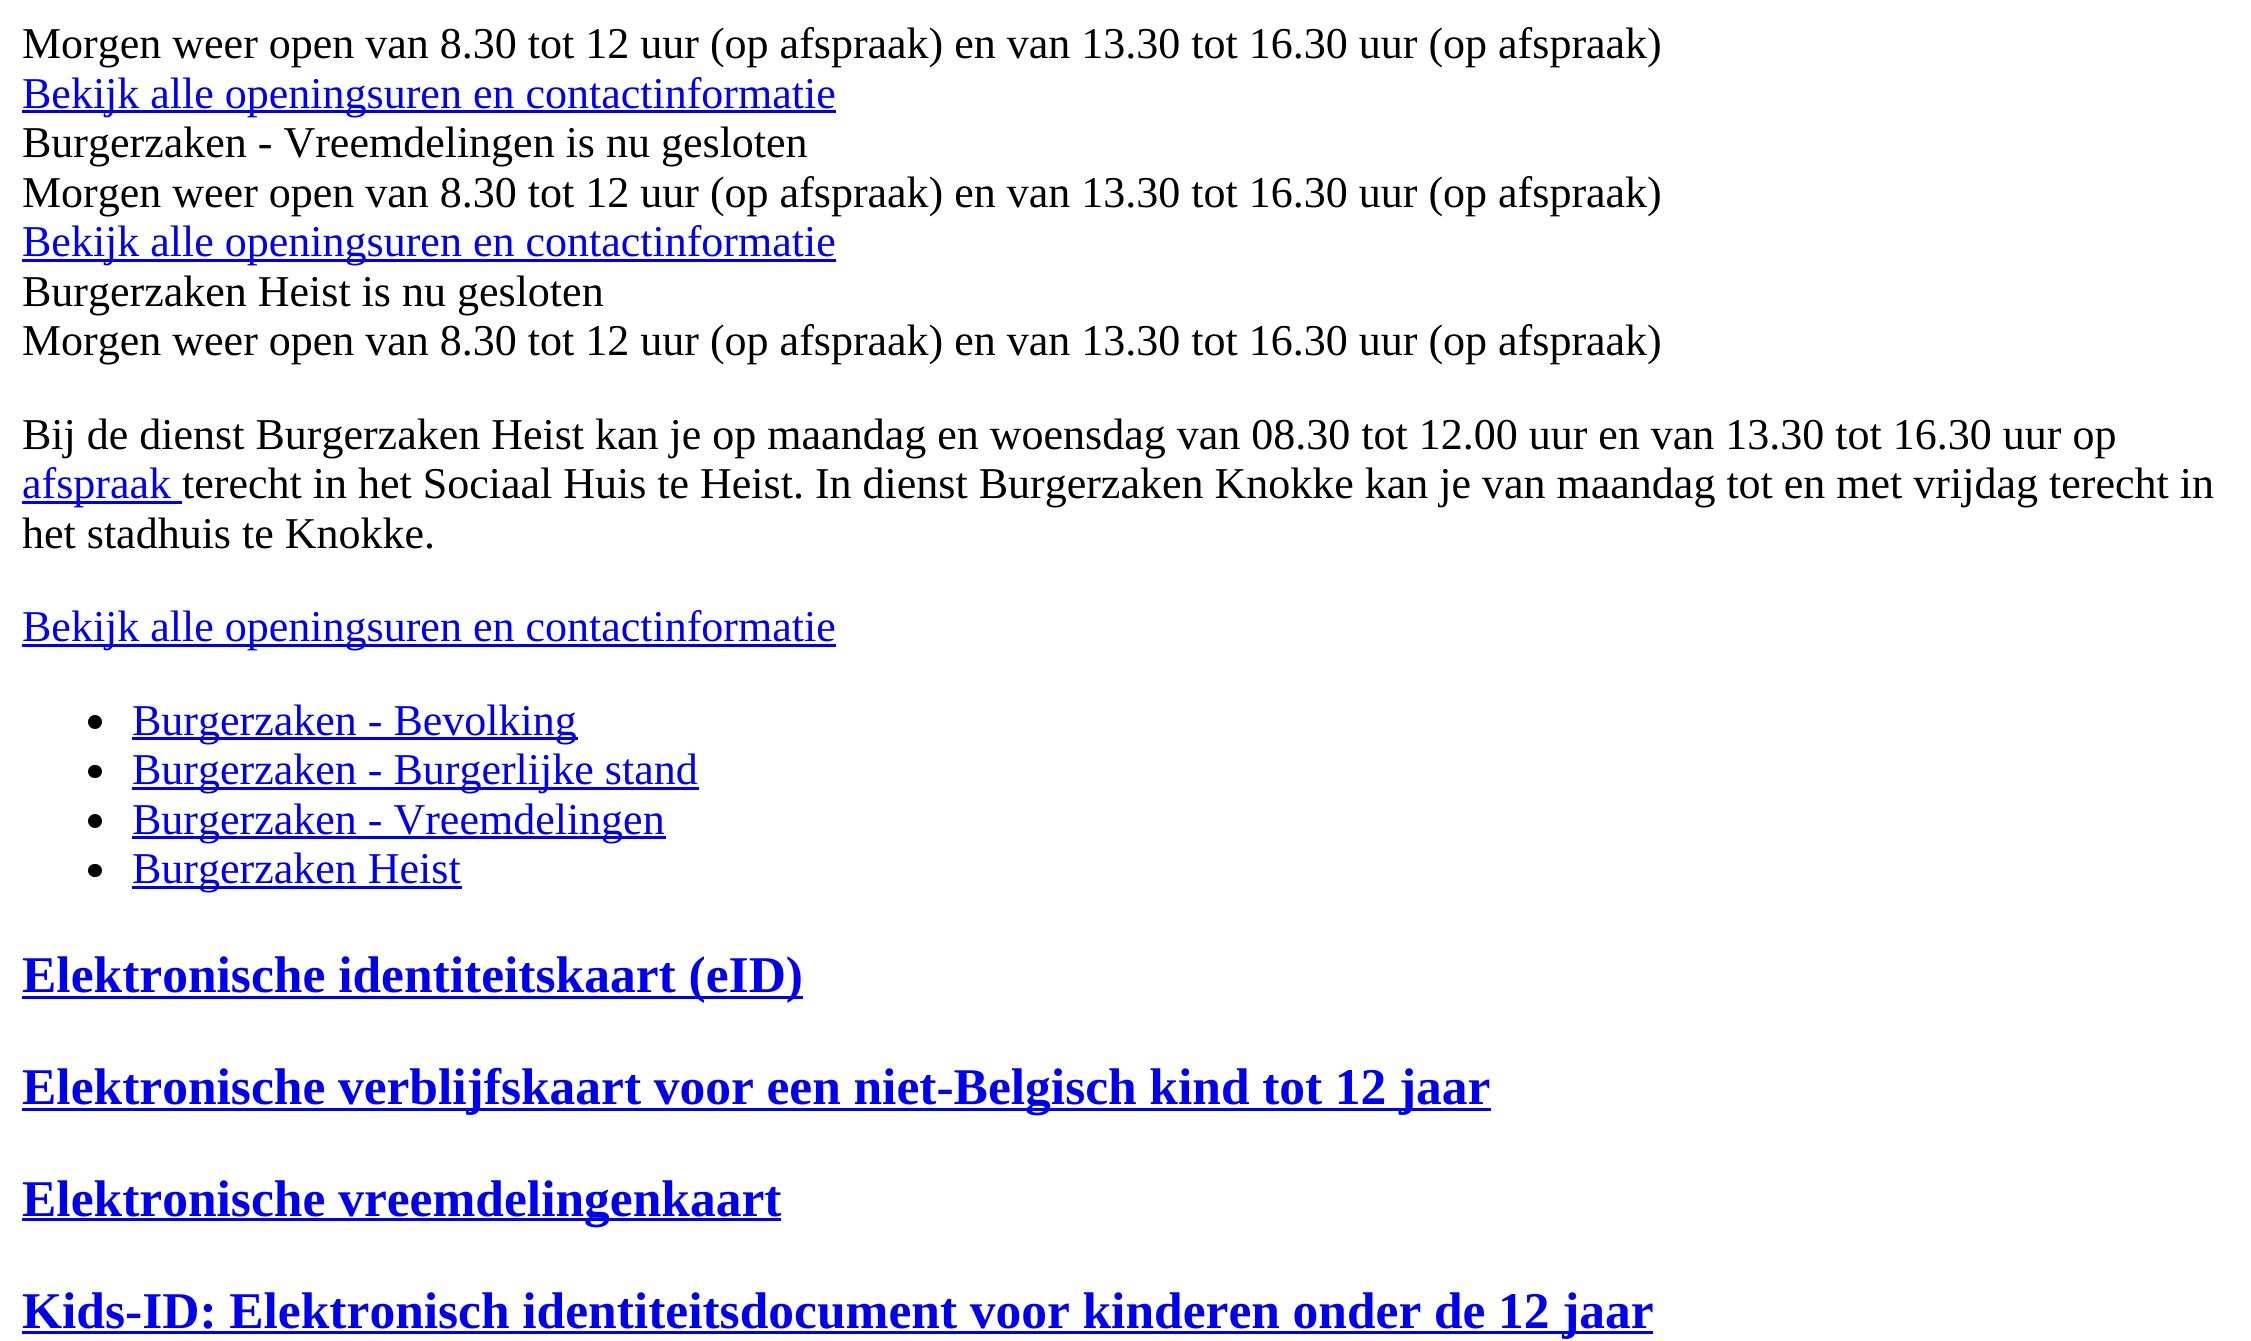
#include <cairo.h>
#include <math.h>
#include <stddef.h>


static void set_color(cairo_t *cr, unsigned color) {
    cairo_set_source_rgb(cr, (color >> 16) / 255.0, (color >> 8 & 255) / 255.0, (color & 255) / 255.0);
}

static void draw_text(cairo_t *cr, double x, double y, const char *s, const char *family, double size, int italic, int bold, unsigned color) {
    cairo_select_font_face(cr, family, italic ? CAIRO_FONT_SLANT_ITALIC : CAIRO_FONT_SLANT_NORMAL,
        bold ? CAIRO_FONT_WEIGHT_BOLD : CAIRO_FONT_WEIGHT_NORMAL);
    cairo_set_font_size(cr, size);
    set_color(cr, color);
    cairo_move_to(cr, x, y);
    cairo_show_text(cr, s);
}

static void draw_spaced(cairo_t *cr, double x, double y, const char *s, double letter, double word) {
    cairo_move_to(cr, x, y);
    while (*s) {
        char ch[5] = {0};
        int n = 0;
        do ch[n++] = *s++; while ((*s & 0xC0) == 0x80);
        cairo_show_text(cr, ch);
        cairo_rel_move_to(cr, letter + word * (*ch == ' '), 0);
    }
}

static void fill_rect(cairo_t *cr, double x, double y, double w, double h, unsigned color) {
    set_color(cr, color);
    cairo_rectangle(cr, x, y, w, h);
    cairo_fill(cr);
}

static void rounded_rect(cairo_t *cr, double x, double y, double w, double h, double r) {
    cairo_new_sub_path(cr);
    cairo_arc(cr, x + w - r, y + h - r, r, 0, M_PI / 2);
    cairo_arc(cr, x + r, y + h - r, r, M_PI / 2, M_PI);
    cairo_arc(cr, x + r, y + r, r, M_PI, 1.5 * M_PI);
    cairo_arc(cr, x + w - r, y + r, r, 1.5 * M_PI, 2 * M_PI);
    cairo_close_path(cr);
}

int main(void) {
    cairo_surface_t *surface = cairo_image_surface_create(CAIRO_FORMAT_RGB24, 2251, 1341);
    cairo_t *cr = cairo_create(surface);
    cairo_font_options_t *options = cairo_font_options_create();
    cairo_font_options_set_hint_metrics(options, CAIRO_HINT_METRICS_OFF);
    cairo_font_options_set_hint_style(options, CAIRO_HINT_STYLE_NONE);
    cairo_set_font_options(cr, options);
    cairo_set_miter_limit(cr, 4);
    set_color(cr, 0xFFFFFF);
    cairo_paint(cr);
    draw_text(cr, 22, 58, "Morgen weer open van 8.30 tot 12 uur (op afspraak) en van 13.30 tot 16.30 uur (op afspraak)", "Liberation Serif", 44, 0, 0, 0x000000);
    fill_rect(cr, 22, 110, 814, 3, 0x0000EE);
    draw_text(cr, 22, 108, "Bekijk alle openingsuren en contactinformatie", "Liberation Serif", 44, 0, 0, 0x0000EE);
    draw_text(cr, 22, 157, "Burgerzaken - Vreemdelingen is nu gesloten", "Liberation Serif", 44, 0, 0, 0x000000);
    draw_text(cr, 22, 207, "Morgen weer open van 8.30 tot 12 uur (op afspraak) en van 13.30 tot 16.30 uur (op afspraak)", "Liberation Serif", 44, 0, 0, 0x000000);
    fill_rect(cr, 22, 259, 814, 3, 0x0000EE);
    draw_text(cr, 22, 256, "Bekijk alle openingsuren en contactinformatie", "Liberation Serif", 44, 0, 0, 0x0000EE);
    draw_text(cr, 22, 306, "Burgerzaken Heist is nu gesloten", "Liberation Serif", 44, 0, 0, 0x000000);
    draw_text(cr, 22, 355, "Morgen weer open van 8.30 tot 12 uur (op afspraak) en van 13.30 tot 16.30 uur (op afspraak)", "Liberation Serif", 44, 0, 0, 0x000000);
    draw_text(cr, 22, 449, "Bij de dienst Burgerzaken Heist kan je op maandag en woensdag van 08.30 tot 12.00 uur en van 13.30 tot 16.30 uur op", "Liberation Serif", 44, 0, 0, 0x000000);
    fill_rect(cr, 22, 501, 160, 3, 0x0000EE);
    draw_text(cr, 22, 498, "afspraak", "Liberation Serif", 44, 0, 0, 0x0000EE);
    draw_text(cr, 182, 498, "terecht in het Sociaal Huis te Heist. In dienst Burgerzaken Knokke kan je van maandag tot en met vrijdag terecht in", "Liberation Serif", 44, 0, 0, 0x000000);
    draw_text(cr, 22, 548, "het stadhuis te Knokke.", "Liberation Serif", 44, 0, 0, 0x000000);
    fill_rect(cr, 22, 644, 814, 3, 0x0000EE);
    draw_text(cr, 22, 641, "Bekijk alle openingsuren en contactinformatie", "Liberation Serif", 44, 0, 0, 0x0000EE);
    set_color(cr, 0x000000);
    cairo_new_path(cr);
    cairo_arc(cr, 95, 722, 7, 0, 2 * M_PI);
    cairo_fill(cr);
    fill_rect(cr, 132, 737, 446, 3, 0x0000EE);
    draw_text(cr, 132, 735, "Burgerzaken - Bevolking", "Liberation Serif", 44, 0, 0, 0x0000EE);
    set_color(cr, 0x000000);
    rounded_rect(cr, 88, 765, 14, 13, 6.5);
    cairo_fill(cr);
    fill_rect(cr, 132, 787, 567, 3, 0x0000EE);
    draw_text(cr, 132, 784, "Burgerzaken - Burgerlijke stand", "Liberation Serif", 44, 0, 0, 0x0000EE);
    set_color(cr, 0x000000);
    cairo_new_path(cr);
    cairo_arc(cr, 95, 821, 7, 0, 2 * M_PI);
    cairo_fill(cr);
    fill_rect(cr, 132, 836, 534, 3, 0x0000EE);
    draw_text(cr, 132, 834, "Burgerzaken - Vreemdelingen", "Liberation Serif", 44, 0, 0, 0x0000EE);
    set_color(cr, 0x000000);
    rounded_rect(cr, 88, 864, 14, 13, 6.5);
    cairo_fill(cr);
    fill_rect(cr, 132, 886, 330, 3, 0x0000EE);
    draw_text(cr, 132, 883, "Burgerzaken Heist", "Liberation Serif", 44, 0, 0, 0x0000EE);
    fill_rect(cr, 22, 996, 781, 3, 0x0000EE);
    draw_text(cr, 22, 992, "Elektronische identiteitskaart (eID)", "Liberation Serif", 51.5, 0, 1, 0x0000EE);
    fill_rect(cr, 22, 1108, 1469, 3, 0x0000EE);
    draw_spaced(cr, 22, 1104, "Elektronische verblijfskaart voor een niet-Belgisch kind tot 12 jaar", 0, -0.25);
    fill_rect(cr, 22, 1218, 759, 3, 0x0000EE);
    draw_text(cr, 22, 1216, "Elektronische vreemdelingenkaart", "Liberation Serif", 51.5, 0, 1, 0x0000EE);
    fill_rect(cr, 22, 1331, 1631, 3, 0x0000EE);
    draw_spaced(cr, 22, 1328, "Kids-ID: Elektronisch identiteitsdocument voor kinderen onder de 12 jaar", 0, -0.25);
    cairo_surface_write_to_png(surface, "output.png");
    cairo_font_options_destroy(options);
    cairo_destroy(cr);
    cairo_surface_destroy(surface);
    return 0;
}
